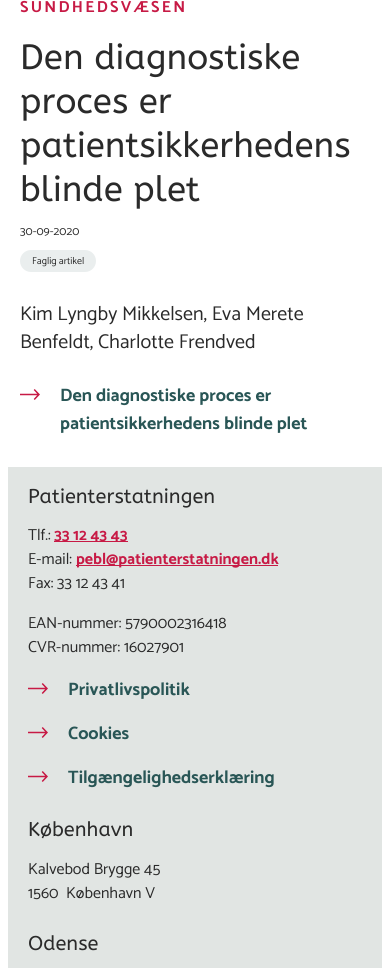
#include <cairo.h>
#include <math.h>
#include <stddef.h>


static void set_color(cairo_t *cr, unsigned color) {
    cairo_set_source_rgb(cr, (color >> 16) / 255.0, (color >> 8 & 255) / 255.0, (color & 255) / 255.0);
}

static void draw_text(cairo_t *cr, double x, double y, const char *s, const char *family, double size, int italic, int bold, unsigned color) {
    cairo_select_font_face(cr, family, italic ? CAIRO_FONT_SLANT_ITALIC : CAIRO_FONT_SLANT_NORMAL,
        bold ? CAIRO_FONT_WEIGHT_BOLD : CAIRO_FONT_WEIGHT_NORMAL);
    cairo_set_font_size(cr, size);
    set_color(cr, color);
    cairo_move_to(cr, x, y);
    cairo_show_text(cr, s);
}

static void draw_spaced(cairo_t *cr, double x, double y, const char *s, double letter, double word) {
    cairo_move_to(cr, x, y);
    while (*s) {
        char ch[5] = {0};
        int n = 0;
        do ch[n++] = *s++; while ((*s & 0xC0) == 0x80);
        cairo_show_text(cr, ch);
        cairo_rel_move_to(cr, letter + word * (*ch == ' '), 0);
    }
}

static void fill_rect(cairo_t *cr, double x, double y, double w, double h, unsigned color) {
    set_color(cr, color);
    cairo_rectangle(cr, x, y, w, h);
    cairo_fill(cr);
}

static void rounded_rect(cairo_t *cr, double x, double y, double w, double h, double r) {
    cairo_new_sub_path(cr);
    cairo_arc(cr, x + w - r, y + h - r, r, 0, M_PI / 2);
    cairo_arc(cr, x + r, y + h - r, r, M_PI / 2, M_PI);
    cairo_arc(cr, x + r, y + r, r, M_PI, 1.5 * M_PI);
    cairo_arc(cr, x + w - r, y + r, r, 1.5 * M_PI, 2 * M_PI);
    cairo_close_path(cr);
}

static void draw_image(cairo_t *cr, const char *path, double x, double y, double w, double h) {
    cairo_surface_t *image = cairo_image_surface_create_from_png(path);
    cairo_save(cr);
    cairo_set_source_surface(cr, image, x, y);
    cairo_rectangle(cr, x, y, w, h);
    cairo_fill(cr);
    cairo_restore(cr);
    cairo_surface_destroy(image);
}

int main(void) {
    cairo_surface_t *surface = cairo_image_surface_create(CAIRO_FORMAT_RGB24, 390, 968);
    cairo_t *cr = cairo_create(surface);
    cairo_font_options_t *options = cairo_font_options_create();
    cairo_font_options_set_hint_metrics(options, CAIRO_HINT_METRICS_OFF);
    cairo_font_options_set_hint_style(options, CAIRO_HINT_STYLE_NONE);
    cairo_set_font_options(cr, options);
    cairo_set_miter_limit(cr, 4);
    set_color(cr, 0xFFFFFF);
    cairo_paint(cr);
    cairo_select_font_face(cr, "Catamaran", CAIRO_FONT_SLANT_NORMAL, CAIRO_FONT_WEIGHT_BOLD);
    cairo_set_font_size(cr, 16);
    set_color(cr, 0xC71A45);
    draw_spaced(cr, 20, 12, "SUNDHEDSVÆSEN", 2.25, 0);
    draw_text(cr, 20, 69, "Den diagnostiske", "ABeeZee", 35, 0, 0, 0x2A2A2A);
    draw_text(cr, 20, 113, "proces er", "ABeeZee", 35, 0, 0, 0x2A2A2A);
    draw_text(cr, 20, 157, "patientsikkerhedens", "ABeeZee", 35, 0, 0, 0x2A2A2A);
    draw_text(cr, 20, 201, "blinde plet", "ABeeZee", 35, 0, 0, 0x2A2A2A);
    draw_text(cr, 20, 235, "30-09-2020", "Catamaran", 12, 0, 0, 0x2A2A2A);
    set_color(cr, 0xEAEEEE);
    rounded_rect(cr, 20, 250, 76, 22, 11);
    cairo_fill(cr);
    draw_text(cr, 32, 264, "Faglig artikel", "Catamaran", 10, 0, 0, 0x2A2A2A);
    draw_text(cr, 20, 320, "Kim Lyngby Mikkelsen, Eva Merete", "Catamaran", 20, 0, 0, 0x2A2A2A);
    draw_text(cr, 20, 348, "Benfeldt, Charlotte Frendved", "Catamaran", 20, 0, 0, 0x2A2A2A);
    draw_image(cr, "assets/img1.png", 20, 389, 20, 11);
    draw_text(cr, 60, 401, "Den diagnostiske proces er", "Catamaran", 18, 0, 1, 0x295656);
    draw_text(cr, 60, 429, "patientsikkerhedens blinde plet", "Catamaran", 18, 0, 1, 0x295656);
    fill_rect(cr, 8, 467, 374, 501, 0xE1E5E3);
    draw_text(cr, 28, 503, "Patienterstatningen", "ABeeZee", 20, 0, 0, 0x2A2A2A);
    draw_text(cr, 28, 540, "Tlf.:", "Catamaran", 16, 0, 0, 0x2A2A2A);
    fill_rect(cr, 54, 541, 74, 1, 0xC71A45);
    draw_text(cr, 54, 540, "33 12 43 43", "Catamaran", 16, 0, 1, 0xC71A45);
    draw_text(cr, 28, 564, "E-mail:", "Catamaran", 16, 0, 0, 0x2A2A2A);
    fill_rect(cr, 76, 565, 202, 1, 0xC71A45);
    draw_text(cr, 76, 564, "pebl@patienterstatningen.dk", "Catamaran", 16, 0, 1, 0xC71A45);
    draw_text(cr, 28, 588, "Fax: 33 12 43 41", "Catamaran", 16, 0, 0, 0x2A2A2A);
    draw_text(cr, 28, 628, "EAN-nummer: 5790002316418", "Catamaran", 16, 0, 0, 0x2A2A2A);
    draw_text(cr, 28, 652, "CVR-nummer: 16027901", "Catamaran", 16, 0, 0, 0x2A2A2A);
    draw_image(cr, "assets/img2.png", 28, 683, 20, 11);
    draw_text(cr, 68, 695, "Privatlivspolitik", "Catamaran", 18, 0, 1, 0x295656);
    draw_image(cr, "assets/img2.png", 28, 727, 20, 11);
    draw_text(cr, 68, 739, "Cookies", "Catamaran", 18, 0, 1, 0x295656);
    draw_image(cr, "assets/img2.png", 28, 771, 20, 11);
    draw_text(cr, 68, 783, "Tilgængelighedserklæring", "Catamaran", 18, 0, 1, 0x295656);
    draw_text(cr, 28, 836, "København", "ABeeZee", 20, 0, 0, 0x2A2A2A);
    draw_text(cr, 28, 874, "Kalvebod Brygge 45", "Catamaran", 16, 0, 0, 0x2A2A2A);
    draw_text(cr, 28, 898, "1560  København V", "Catamaran", 16, 0, 0, 0x2A2A2A);
    draw_text(cr, 28, 950, "Odense", "ABeeZee", 20, 0, 0, 0x2A2A2A);
    cairo_surface_write_to_png(surface, "output.png");
    cairo_font_options_destroy(options);
    cairo_destroy(cr);
    cairo_surface_destroy(surface);
    return 0;
}
